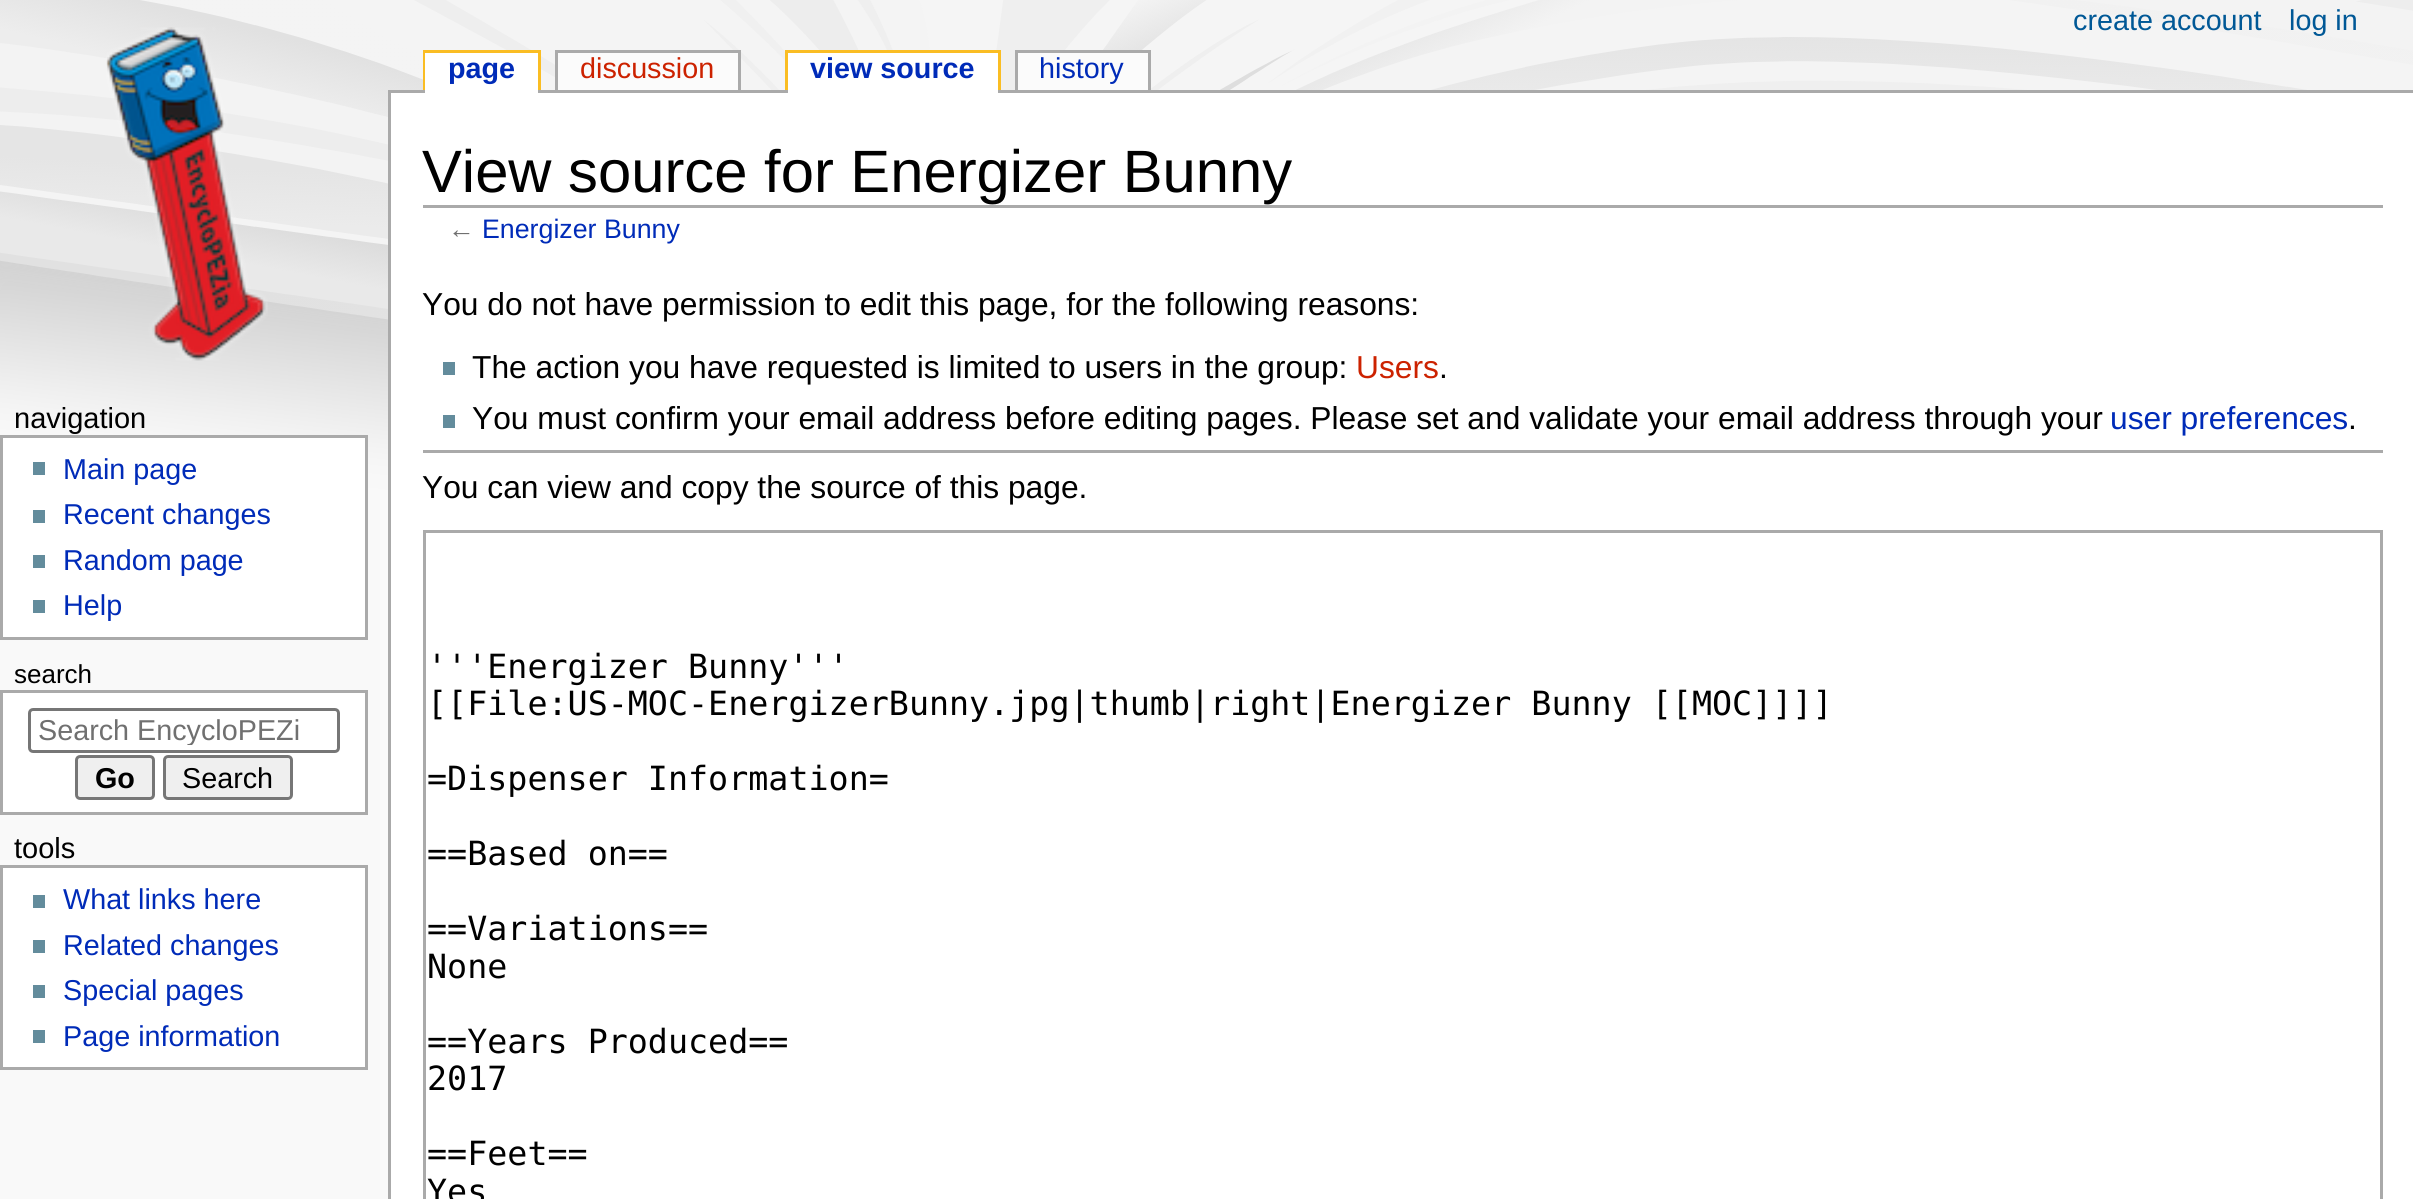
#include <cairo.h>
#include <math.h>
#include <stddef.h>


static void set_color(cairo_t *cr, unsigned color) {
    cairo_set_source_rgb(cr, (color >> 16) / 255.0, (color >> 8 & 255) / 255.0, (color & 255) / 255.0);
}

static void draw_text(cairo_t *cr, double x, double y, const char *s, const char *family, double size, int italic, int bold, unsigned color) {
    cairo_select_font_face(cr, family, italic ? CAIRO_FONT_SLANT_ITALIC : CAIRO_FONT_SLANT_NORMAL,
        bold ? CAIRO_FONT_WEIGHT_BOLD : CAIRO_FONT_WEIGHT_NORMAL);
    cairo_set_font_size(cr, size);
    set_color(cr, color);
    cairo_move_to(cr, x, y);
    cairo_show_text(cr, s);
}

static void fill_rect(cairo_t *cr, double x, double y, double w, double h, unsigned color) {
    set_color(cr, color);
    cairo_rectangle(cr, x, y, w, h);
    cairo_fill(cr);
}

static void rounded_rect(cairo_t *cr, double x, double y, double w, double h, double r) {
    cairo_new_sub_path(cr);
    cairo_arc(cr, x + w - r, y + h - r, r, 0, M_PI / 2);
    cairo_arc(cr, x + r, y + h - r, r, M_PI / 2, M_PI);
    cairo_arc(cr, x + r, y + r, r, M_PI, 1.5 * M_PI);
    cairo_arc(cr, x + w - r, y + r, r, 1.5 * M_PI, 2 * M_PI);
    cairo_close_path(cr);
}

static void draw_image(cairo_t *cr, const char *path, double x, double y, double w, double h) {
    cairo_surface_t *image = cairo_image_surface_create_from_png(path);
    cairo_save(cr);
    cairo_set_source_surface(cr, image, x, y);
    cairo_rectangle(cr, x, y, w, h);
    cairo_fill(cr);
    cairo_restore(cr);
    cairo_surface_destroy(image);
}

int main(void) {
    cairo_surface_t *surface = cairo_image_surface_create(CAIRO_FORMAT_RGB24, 2413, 1199);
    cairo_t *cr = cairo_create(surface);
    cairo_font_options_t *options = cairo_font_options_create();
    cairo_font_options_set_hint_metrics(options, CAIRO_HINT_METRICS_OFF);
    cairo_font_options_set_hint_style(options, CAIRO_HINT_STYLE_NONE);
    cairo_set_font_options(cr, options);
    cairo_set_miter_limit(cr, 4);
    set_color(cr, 0xF9F9F9);
    cairo_paint(cr);
    draw_image(cr, "assets/img1.png", 0, 0, 2413, 525);
    draw_text(cr, 2073, 30, "create account", "Liberation Sans", 28.75, 0, 0, 0x005896);
    draw_text(cr, 2289, 30, "log in", "Liberation Sans", 28.75, 0, 0, 0x005896);
    draw_image(cr, "assets/img2.png", 106, 27, 162, 334);
    fill_rect(cr, 423, 50, 117, 3, 0xFABD23);
    fill_rect(cr, 423, 50, 3, 40, 0xFABD23);
    fill_rect(cr, 388, 90, 2025, 3, 0xAAAAAA);
    fill_rect(cr, 425, 53, 113, 40, 0xFFFFFF);
    draw_text(cr, 448, 78, "page", "Liberation Sans", 28.75, 0, 1, 0x002BB8);
    fill_rect(cr, 538, 50, 3, 40, 0xFABD23);
    fill_rect(cr, 558, 53, 180, 37, 0xFBFBFB);
    draw_text(cr, 580, 78, "discussion", "Liberation Sans", 28.75, 0, 0, 0xCC2200);
    fill_rect(cr, 555, 50, 185, 3, 0xAAAAAA);
    fill_rect(cr, 738, 50, 3, 40, 0xAAAAAA);
    fill_rect(cr, 555, 50, 3, 40, 0xAAAAAA);
    fill_rect(cr, 788, 53, 210, 40, 0xFFFFFF);
    draw_text(cr, 810, 78, "view source", "Liberation Sans", 28.75, 0, 1, 0x002BB8);
    fill_rect(cr, 785, 50, 215, 3, 0xFABD23);
    fill_rect(cr, 998, 50, 3, 40, 0xFABD23);
    fill_rect(cr, 785, 50, 3, 40, 0xFABD23);
    fill_rect(cr, 1018, 53, 130, 37, 0xFBFBFB);
    draw_text(cr, 1039, 78, "history", "Liberation Sans", 28.75, 0, 0, 0x002BB8);
    fill_rect(cr, 1015, 50, 135, 3, 0xAAAAAA);
    fill_rect(cr, 1148, 50, 3, 40, 0xAAAAAA);
    fill_rect(cr, 1015, 50, 3, 40, 0xAAAAAA);
    draw_text(cr, 14, 428, "navigation", "Liberation Sans", 29, 0, 0, 0x000000);
    set_color(cr, 0xFFFFFF);
    cairo_rectangle(cr, 1.5, 436.5, 365, 202);
    cairo_fill_preserve(cr);
    set_color(cr, 0xAAAAAA);
    cairo_set_line_width(cr, 3);
    cairo_stroke(cr);
    fill_rect(cr, 33, 462, 12, 13, 0x638C9C);
    draw_text(cr, 63, 479, "Main page", "Liberation Sans", 28.75, 0, 0, 0x002BB8);
    fill_rect(cr, 33, 510, 12, 13, 0x638C9C);
    draw_text(cr, 63, 524, "Recent changes", "Liberation Sans", 28.75, 0, 0, 0x002BB8);
    fill_rect(cr, 33, 555, 12, 13, 0x638C9C);
    draw_text(cr, 63, 570, "Random page", "Liberation Sans", 28.75, 0, 0, 0x002BB8);
    fill_rect(cr, 33, 600, 12, 13, 0x638C9C);
    draw_text(cr, 63, 615, "Help", "Liberation Sans", 28.75, 0, 0, 0x002BB8);
    draw_text(cr, 14, 683, "search", "Liberation Sans", 26, 0, 0, 0x000000);
    set_color(cr, 0xFFFFFF);
    cairo_rectangle(cr, 1.5, 691.5, 365, 122);
    cairo_fill_preserve(cr);
    set_color(cr, 0xAAAAAA);
    cairo_stroke(cr);
    rounded_rect(cr, 29.5, 709.5, 309, 42, 3.5);
    set_color(cr, 0x767676);
    cairo_stroke(cr);
    cairo_save(cr);
    cairo_rectangle(cr, 38, 715, 262, 30);
    cairo_clip(cr);
    draw_text(cr, 38, 740, "Search EncycloPEZi", "Liberation Sans", 28.75, 0, 0, 0x707070);
    cairo_restore(cr);
    set_color(cr, 0xEFEFEF);
    rounded_rect(cr, 76.5, 756.5, 77, 42, 3.5);
    cairo_fill_preserve(cr);
    set_color(cr, 0x767676);
    cairo_stroke(cr);
    draw_text(cr, 95, 788, "Go", "Liberation Sans", 28.75, 0, 1, 0x000000);
    set_color(cr, 0xEFEFEF);
    rounded_rect(cr, 164.5, 756.5, 127, 42, 3.5);
    cairo_fill_preserve(cr);
    set_color(cr, 0x767676);
    cairo_stroke(cr);
    draw_text(cr, 182, 788, "Search", "Liberation Sans", 28.75, 0, 0, 0x000000);
    draw_text(cr, 14, 858, "tools", "Liberation Sans", 29, 0, 0, 0x000000);
    set_color(cr, 0xFFFFFF);
    cairo_rectangle(cr, 1.5, 866.5, 365, 202);
    cairo_fill_preserve(cr);
    set_color(cr, 0xAAAAAA);
    cairo_stroke(cr);
    fill_rect(cr, 33, 895, 12, 13, 0x638C9C);
    draw_text(cr, 63, 909, "What links here", "Liberation Sans", 28.75, 0, 0, 0x002BB8);
    fill_rect(cr, 33, 940, 12, 13, 0x638C9C);
    draw_text(cr, 63, 955, "Related changes", "Liberation Sans", 28.75, 0, 0, 0x002BB8);
    fill_rect(cr, 33, 985, 12, 13, 0x638C9C);
    draw_text(cr, 63, 1000, "Special pages", "Liberation Sans", 28.75, 0, 0, 0x002BB8);
    fill_rect(cr, 33, 1030, 12, 13, 0x638C9C);
    draw_text(cr, 63, 1046, "Page information", "Liberation Sans", 28.75, 0, 0, 0x002BB8);
    fill_rect(cr, 391, 93, 2022, 1106, 0xFFFFFF);
    fill_rect(cr, 388, 90, 3, 1109, 0xAAAAAA);
    fill_rect(cr, 423, 205, 1960, 3, 0xAAAAAA);
    draw_text(cr, 422, 192, "View source for Energizer Bunny", "Liberation Sans", 59.75, 0, 0, 0x000000);
    draw_text(cr, 448, 238, "←", "Liberation Sans", 26.75, 0, 0, 0x707070);
    draw_text(cr, 482, 238, "Energizer Bunny", "Liberation Sans", 26.75, 0, 0, 0x002BB8);
    draw_text(cr, 422, 315, "You do not have permission to edit this page, for the following reasons:", "Liberation Sans", 31.75, 0, 0, 0x000000);
    fill_rect(cr, 443, 362, 12, 13, 0x638C9C);
    draw_text(cr, 472, 378, "The action you have requested is limited to users in the group:", "Liberation Sans", 31.75, 0, 0, 0x000000);
    draw_text(cr, 1356, 378, "Users", "Liberation Sans", 31.75, 0, 0, 0xCC2200);
    draw_text(cr, 1439, 378, ".", "Liberation Sans", 31.75, 0, 0, 0x000000);
    fill_rect(cr, 443, 415, 12, 13, 0x638C9C);
    draw_text(cr, 472, 429, "You must confirm your email address before editing pages. Please set and validate your email address through your", "Liberation Sans", 31.75, 0, 0, 0x000000);
    draw_text(cr, 2110, 429, "user preferences", "Liberation Sans", 31.75, 0, 0, 0x002BB8);
    draw_text(cr, 2348, 429, ".", "Liberation Sans", 31.75, 0, 0, 0x000000);
    fill_rect(cr, 423, 450, 1960, 3, 0xAAAAAA);
    draw_text(cr, 422, 498, "You can view and copy the source of this page.", "Liberation Sans", 31.75, 0, 0, 0x000000);
    cairo_rectangle(cr, 424.5, 531.5, 1957, 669);
    set_color(cr, 0xAAAAAA);
    cairo_stroke(cr);
    draw_text(cr, 427, 678, "'''Energizer Bunny'''", "DejaVu Sans Mono", 33.35, 0, 0, 0x000000);
    draw_text(cr, 427, 715, "[[File:US-MOC-EnergizerBunny.jpg|thumb|right|Energizer Bunny [[MOC]]]]", "DejaVu Sans Mono", 33.35, 0, 0, 0x000000);
    draw_text(cr, 427, 790, "=Dispenser Information=", "DejaVu Sans Mono", 33.35, 0, 0, 0x000000);
    draw_text(cr, 427, 865, "==Based on==", "DejaVu Sans Mono", 33.35, 0, 0, 0x000000);
    draw_text(cr, 427, 940, "==Variations==", "DejaVu Sans Mono", 33.35, 0, 0, 0x000000);
    draw_text(cr, 427, 978, "None", "DejaVu Sans Mono", 33.35, 0, 0, 0x000000);
    draw_text(cr, 427, 1053, "==Years Produced==", "DejaVu Sans Mono", 33.35, 0, 0, 0x000000);
    draw_text(cr, 427, 1090, "2017", "DejaVu Sans Mono", 33.35, 0, 0, 0x000000);
    draw_text(cr, 427, 1165, "==Feet==", "DejaVu Sans Mono", 33.35, 0, 0, 0x000000);
    draw_text(cr, 427, 1203, "Yes", "DejaVu Sans Mono", 33.35, 0, 0, 0x000000);
    cairo_surface_write_to_png(surface, "output.png");
    cairo_font_options_destroy(options);
    cairo_destroy(cr);
    cairo_surface_destroy(surface);
    return 0;
}
